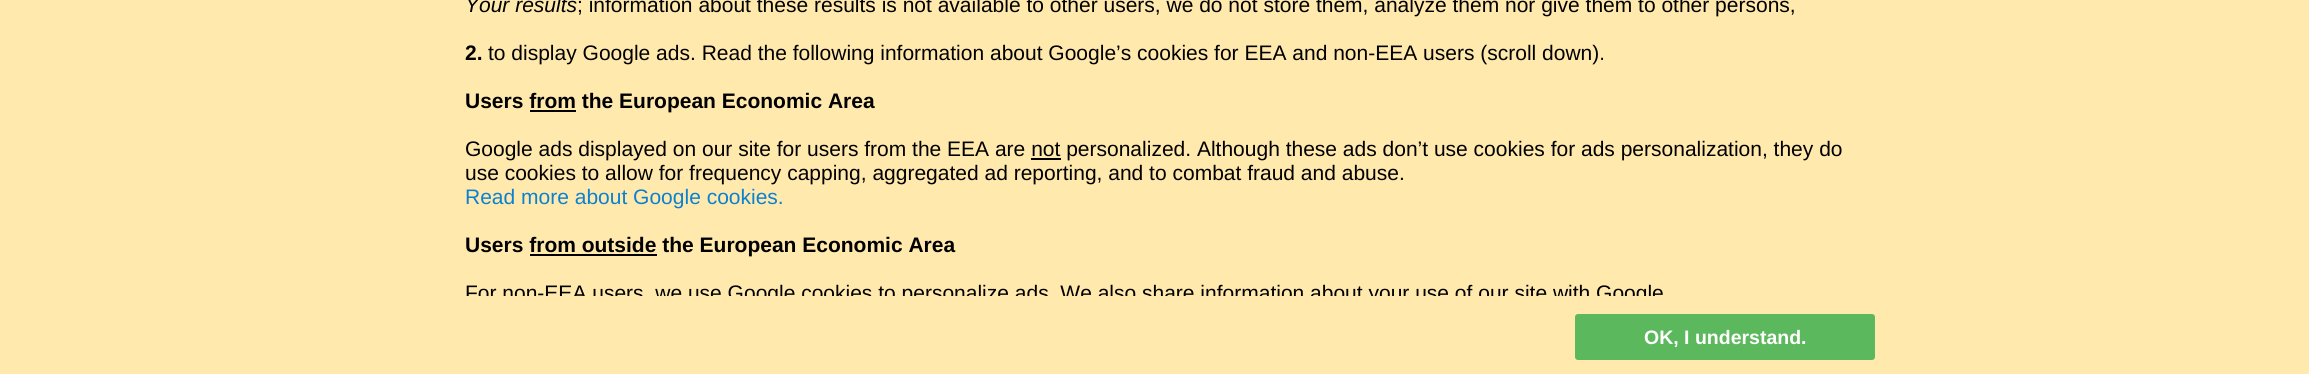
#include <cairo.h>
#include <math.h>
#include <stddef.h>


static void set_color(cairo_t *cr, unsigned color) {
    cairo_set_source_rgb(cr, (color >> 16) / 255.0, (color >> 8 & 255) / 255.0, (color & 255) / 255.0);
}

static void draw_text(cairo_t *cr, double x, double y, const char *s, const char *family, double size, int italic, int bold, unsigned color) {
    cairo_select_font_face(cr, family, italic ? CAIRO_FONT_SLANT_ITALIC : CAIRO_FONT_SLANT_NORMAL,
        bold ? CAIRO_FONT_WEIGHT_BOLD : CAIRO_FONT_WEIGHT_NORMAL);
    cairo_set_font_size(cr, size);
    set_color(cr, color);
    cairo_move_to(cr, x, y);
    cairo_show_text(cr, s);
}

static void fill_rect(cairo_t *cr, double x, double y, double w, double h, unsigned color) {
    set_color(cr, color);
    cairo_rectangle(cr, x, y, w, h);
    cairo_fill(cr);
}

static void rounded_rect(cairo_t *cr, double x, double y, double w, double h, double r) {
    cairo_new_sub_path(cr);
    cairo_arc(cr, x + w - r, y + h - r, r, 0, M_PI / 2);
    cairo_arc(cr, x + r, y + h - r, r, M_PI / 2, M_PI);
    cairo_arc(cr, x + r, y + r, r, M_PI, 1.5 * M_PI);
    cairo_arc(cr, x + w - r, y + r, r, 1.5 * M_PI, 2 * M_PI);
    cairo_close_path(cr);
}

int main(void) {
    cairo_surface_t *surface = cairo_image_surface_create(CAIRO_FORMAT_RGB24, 2309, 374);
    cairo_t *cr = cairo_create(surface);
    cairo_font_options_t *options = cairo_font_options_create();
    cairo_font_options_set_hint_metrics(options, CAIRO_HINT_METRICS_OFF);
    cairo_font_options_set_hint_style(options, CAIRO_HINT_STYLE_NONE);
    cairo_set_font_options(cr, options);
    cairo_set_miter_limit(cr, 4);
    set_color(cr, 0xFFE9AD);
    cairo_paint(cr);
    draw_text(cr, 465, 12, "Your results", "Liberation Sans", 21, 1, 0, 0x000000);
    draw_text(cr, 577, 12, "; information about these results is not available to other users, we do not store them, analyze them nor give them to other persons,", "Liberation Sans", 21, 0, 0, 0x000000);
    draw_text(cr, 465, 60, "2.", "Liberation Sans", 21, 0, 1, 0x000000);
    draw_text(cr, 488, 60, "to display Google ads. Read the following information about Google’s cookies for EEA and non-EEA users (scroll down).", "Liberation Sans", 21, 0, 0, 0x000000);
    draw_text(cr, 465, 108, "Users from the European Economic Area", "Liberation Sans", 21, 0, 1, 0x000000);
    fill_rect(cr, 530, 110, 46, 2, 0x000000);
    draw_text(cr, 465, 156, "Google ads displayed on our site for users from the EEA are not personalized. Although these ads don’t use cookies for ads personalization, they do", "Liberation Sans", 21, 0, 0, 0x000000);
    fill_rect(cr, 1031, 158, 30, 2, 0x000000);
    draw_text(cr, 465, 180, "use cookies to allow for frequency capping, aggregated ad reporting, and to combat fraud and abuse.", "Liberation Sans", 21, 0, 0, 0x000000);
    draw_text(cr, 465, 204, "Read more about Google cookies.", "Liberation Sans", 21, 0, 0, 0x0A81D1);
    draw_text(cr, 465, 252, "Users from outside the European Economic Area", "Liberation Sans", 21, 0, 1, 0x000000);
    fill_rect(cr, 530, 254, 127, 2, 0x000000);
    cairo_save(cr);
    cairo_rectangle(cr, 465, 0, 1410, 296);
    cairo_clip(cr);
    draw_text(cr, 465, 300, "For non-EEA users, we use Google cookies to personalize ads. We also share information about your use of our site with Google", "Liberation Sans", 21, 0, 0, 0x000000);
    cairo_restore(cr);
    set_color(cr, 0x5CB85C);
    rounded_rect(cr, 1575, 314, 300, 46, 3);
    cairo_fill(cr);
    draw_text(cr, 1644, 344, "OK, I understand.", "Liberation Sans", 19.5, 0, 1, 0xFFFFFF);
    cairo_surface_write_to_png(surface, "output.png");
    cairo_font_options_destroy(options);
    cairo_destroy(cr);
    cairo_surface_destroy(surface);
    return 0;
}
